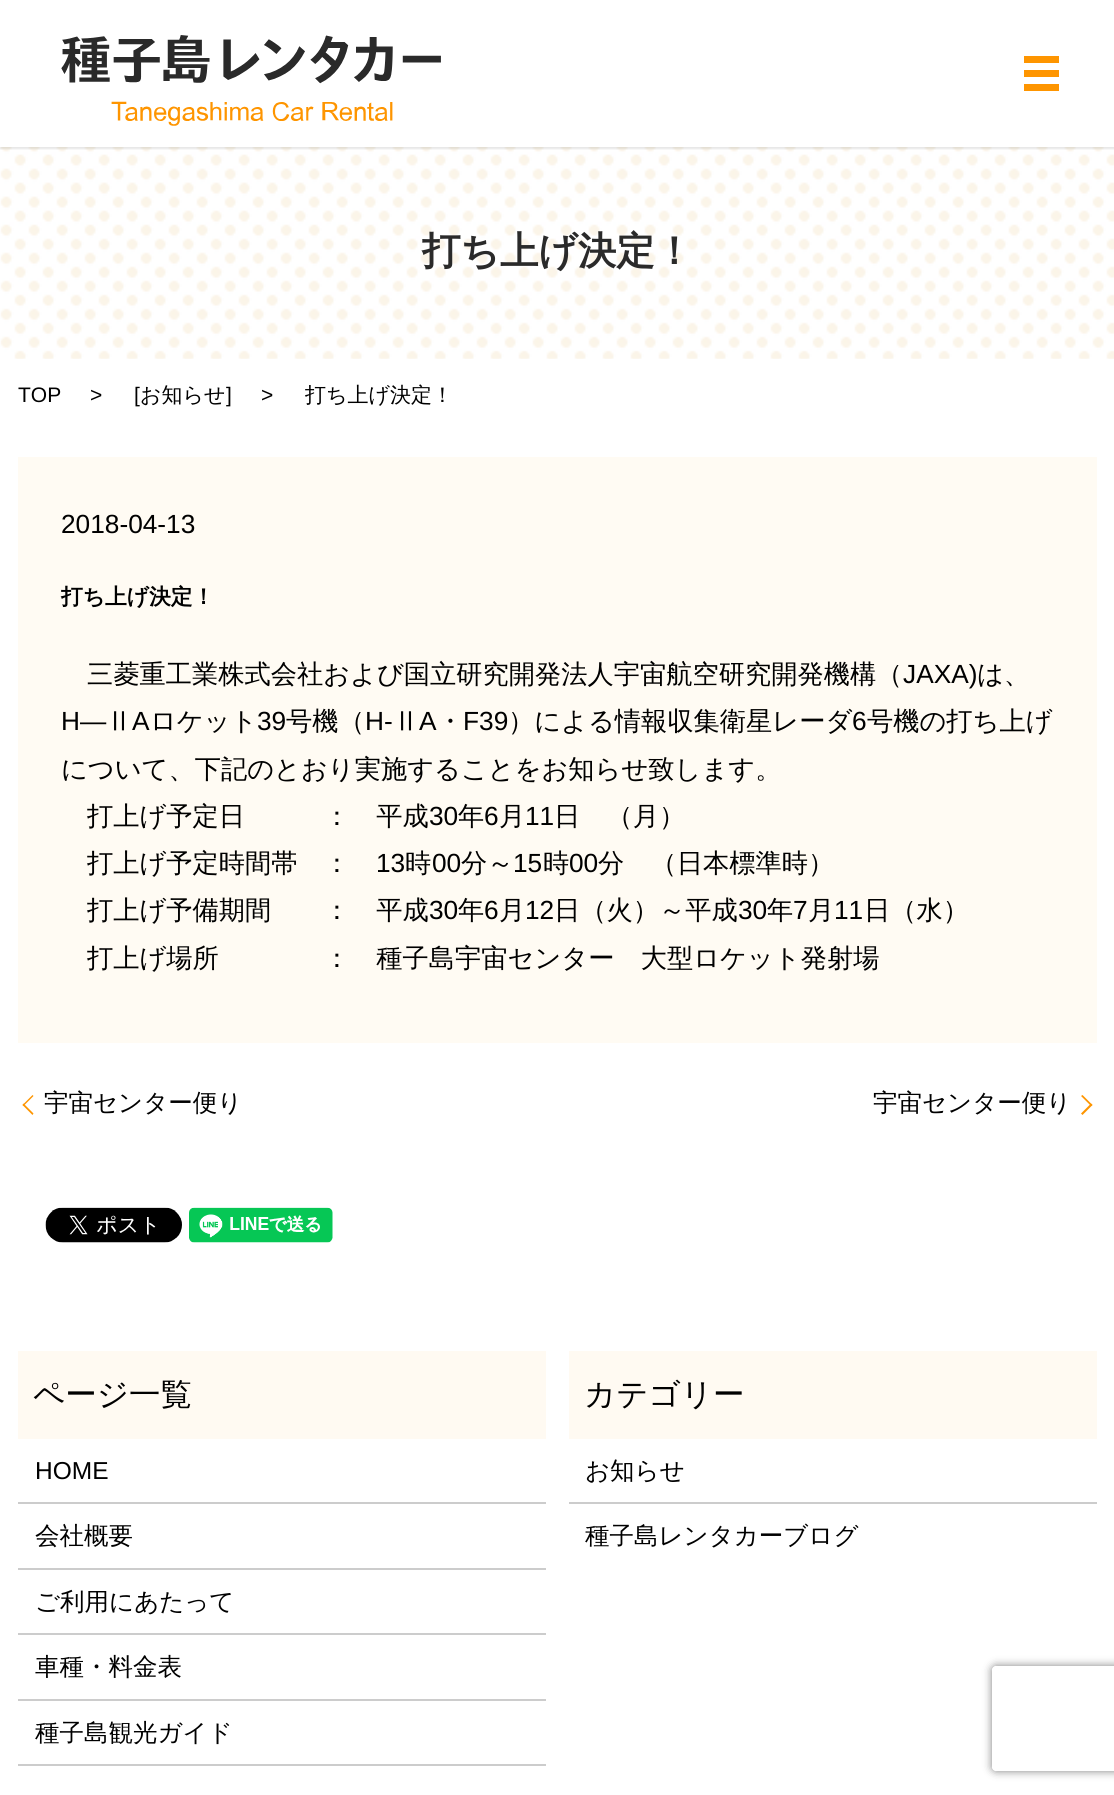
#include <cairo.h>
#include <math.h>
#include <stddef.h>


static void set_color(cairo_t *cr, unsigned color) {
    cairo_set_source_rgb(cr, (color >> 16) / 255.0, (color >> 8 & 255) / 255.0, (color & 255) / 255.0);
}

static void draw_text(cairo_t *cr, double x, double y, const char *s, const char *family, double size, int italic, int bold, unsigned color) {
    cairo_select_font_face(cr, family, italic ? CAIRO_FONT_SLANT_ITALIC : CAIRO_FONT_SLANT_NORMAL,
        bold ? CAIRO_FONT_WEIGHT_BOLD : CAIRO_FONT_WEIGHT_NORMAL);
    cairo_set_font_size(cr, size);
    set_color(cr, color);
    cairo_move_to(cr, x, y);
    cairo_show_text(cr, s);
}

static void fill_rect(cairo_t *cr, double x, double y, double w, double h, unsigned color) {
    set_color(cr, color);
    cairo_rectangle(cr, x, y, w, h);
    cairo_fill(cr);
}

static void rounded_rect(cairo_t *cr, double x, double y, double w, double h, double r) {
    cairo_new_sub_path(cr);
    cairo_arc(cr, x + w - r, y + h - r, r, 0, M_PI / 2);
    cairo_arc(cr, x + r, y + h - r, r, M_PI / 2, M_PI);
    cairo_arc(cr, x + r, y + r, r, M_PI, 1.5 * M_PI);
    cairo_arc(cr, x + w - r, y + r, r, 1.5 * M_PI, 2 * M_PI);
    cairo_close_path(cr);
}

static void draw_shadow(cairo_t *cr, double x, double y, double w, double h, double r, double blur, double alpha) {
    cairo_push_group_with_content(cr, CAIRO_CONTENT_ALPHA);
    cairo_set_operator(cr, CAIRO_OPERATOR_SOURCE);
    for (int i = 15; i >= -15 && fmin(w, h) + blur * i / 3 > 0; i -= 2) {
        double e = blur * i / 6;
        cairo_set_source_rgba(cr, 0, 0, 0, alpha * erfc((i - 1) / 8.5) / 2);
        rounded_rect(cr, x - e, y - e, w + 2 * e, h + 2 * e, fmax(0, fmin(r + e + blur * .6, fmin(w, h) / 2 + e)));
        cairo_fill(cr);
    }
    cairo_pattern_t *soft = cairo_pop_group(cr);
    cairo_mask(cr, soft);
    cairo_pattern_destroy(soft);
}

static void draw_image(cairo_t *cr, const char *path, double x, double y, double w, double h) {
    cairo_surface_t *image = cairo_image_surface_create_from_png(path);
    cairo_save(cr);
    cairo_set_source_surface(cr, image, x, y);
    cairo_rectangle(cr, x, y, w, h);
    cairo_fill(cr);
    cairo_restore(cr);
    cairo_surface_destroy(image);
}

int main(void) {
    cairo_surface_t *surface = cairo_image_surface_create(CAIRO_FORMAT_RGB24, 1114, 1795);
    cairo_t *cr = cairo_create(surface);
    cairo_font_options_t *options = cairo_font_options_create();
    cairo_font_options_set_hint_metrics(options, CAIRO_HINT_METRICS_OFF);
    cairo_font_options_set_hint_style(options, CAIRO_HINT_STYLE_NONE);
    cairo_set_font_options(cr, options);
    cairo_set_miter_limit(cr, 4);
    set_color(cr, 0xFFFFFF);
    cairo_paint(cr);
    draw_image(cr, "assets/img2.png", 0, 147, 1114, 212);
    cairo_save(cr);
    cairo_rectangle(cr, 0, 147, 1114, 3);
    cairo_clip(cr);
    set_color(cr, 0x000000);
    draw_shadow(cr, 0, 2, 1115, 147, 0, 1, 0.1);
    cairo_restore(cr);
    draw_image(cr, "assets/img1.png", 61, 35, 380, 91);
    fill_rect(cr, 1024, 56, 35, 7, 0xFE9500);
    fill_rect(cr, 1024, 70, 35, 7, 0xFE9500);
    fill_rect(cr, 1024, 84, 35, 7, 0xFE9500);
    draw_text(cr, 422, 264, "打ち上げ決定！", "WenQuanYi Zen Hei", 38.5, 0, 1, 0x2A2A2A);
    draw_text(cr, 18, 402, "TOP", "Liberation Sans", 21, 0, 0, 0x000000);
    draw_text(cr, 90, 402, ">", "Liberation Sans", 21, 0, 0, 0x000000);
    draw_text(cr, 134, 402, "[", "Liberation Sans", 21, 0, 0, 0x000000);
    draw_text(cr, 140, 402, "お知らせ", "WenQuanYi Zen Hei Medium", 21, 0, 0, 0x000000);
    draw_text(cr, 226, 402, "]", "Liberation Sans", 21, 0, 0, 0x000000);
    draw_text(cr, 261, 402, ">", "Liberation Sans", 21, 0, 0, 0x000000);
    draw_text(cr, 305, 402, "打ち上げ決定！", "WenQuanYi Zen Hei Medium", 21, 0, 0, 0x000000);
    fill_rect(cr, 18, 457, 1079, 586, 0xFFFBF3);
    draw_text(cr, 61, 533, "2018-04-13", "Liberation Sans", 26.25, 0, 0, 0x000000);
    draw_text(cr, 61, 604, "打ち上げ決定！", "WenQuanYi Zen Hei", 21.75, 0, 1, 0x000000);
    draw_text(cr, 87, 683, "三菱重工業株式会社および国立研究開発法人宇宙航空研究開発機構（", "WenQuanYi Zen Hei Medium", 26.25, 0, 0, 0x000000);
    draw_text(cr, 903, 683, "JAXA)", "Liberation Sans", 26.25, 0, 0, 0x000000);
    draw_text(cr, 977, 683, "は、", "WenQuanYi Zen Hei Medium", 26.25, 0, 0, 0x000000);
    draw_text(cr, 61, 730, "H―", "Liberation Sans", 26.25, 0, 0, 0x000000);
    draw_text(cr, 106, 730, "Ⅱ", "WenQuanYi Zen Hei Medium", 26.25, 0, 0, 0x000000);
    draw_text(cr, 132, 730, "A", "Liberation Sans", 26.25, 0, 0, 0x000000);
    draw_text(cr, 150, 730, "ロケット", "WenQuanYi Zen Hei Medium", 26.25, 0, 0, 0x000000);
    draw_text(cr, 257, 730, "39", "Liberation Sans", 26.25, 0, 0, 0x000000);
    draw_text(cr, 286, 730, "号機（", "WenQuanYi Zen Hei Medium", 26.25, 0, 0, 0x000000);
    draw_text(cr, 365, 730, "H-", "Liberation Sans", 26.25, 0, 0, 0x000000);
    draw_text(cr, 393, 730, "Ⅱ", "WenQuanYi Zen Hei Medium", 26.25, 0, 0, 0x000000);
    draw_text(cr, 419, 730, "A", "Liberation Sans", 26.25, 0, 0, 0x000000);
    draw_text(cr, 437, 730, "・", "WenQuanYi Zen Hei Medium", 26.25, 0, 0, 0x000000);
    draw_text(cr, 463, 730, "F39", "Liberation Sans", 26.25, 0, 0, 0x000000);
    draw_text(cr, 508, 730, "）による情報収集衛星レーダ", "WenQuanYi Zen Hei Medium", 26.25, 0, 0, 0x000000);
    draw_text(cr, 852, 730, "6", "Liberation Sans", 26.25, 0, 0, 0x000000);
    draw_text(cr, 867, 730, "号機の打ち上げ", "WenQuanYi Zen Hei Medium", 26.25, 0, 0, 0x000000);
    draw_text(cr, 61, 778, "について、下記のとおり実施することをお知らせ致します。", "WenQuanYi Zen Hei Medium", 26.25, 0, 0, 0x000000);
    draw_text(cr, 87, 825, "打上げ予定日　　　：　平成", "WenQuanYi Zen Hei Medium", 26.25, 0, 0, 0x000000);
    draw_text(cr, 429, 825, "30", "Liberation Sans", 26.25, 0, 0, 0x000000);
    draw_text(cr, 458, 825, "年", "WenQuanYi Zen Hei Medium", 26.25, 0, 0, 0x000000);
    draw_text(cr, 484, 825, "6", "Liberation Sans", 26.25, 0, 0, 0x000000);
    draw_text(cr, 499, 825, "月", "WenQuanYi Zen Hei Medium", 26.25, 0, 0, 0x000000);
    draw_text(cr, 525, 825, "11", "Liberation Sans", 26.25, 0, 0, 0x000000);
    draw_text(cr, 554, 825, "日　（月）", "WenQuanYi Zen Hei Medium", 26.25, 0, 0, 0x000000);
    draw_text(cr, 87, 872, "打上げ予定時間帯　：", "WenQuanYi Zen Hei Medium", 26.25, 0, 0, 0x000000);
    draw_text(cr, 376, 872, "13", "Liberation Sans", 26.25, 0, 0, 0x000000);
    draw_text(cr, 405, 872, "時", "WenQuanYi Zen Hei Medium", 26.25, 0, 0, 0x000000);
    draw_text(cr, 432, 872, "00", "Liberation Sans", 26.25, 0, 0, 0x000000);
    draw_text(cr, 461, 872, "分～", "WenQuanYi Zen Hei Medium", 26.25, 0, 0, 0x000000);
    draw_text(cr, 513, 872, "15", "Liberation Sans", 26.25, 0, 0, 0x000000);
    draw_text(cr, 543, 872, "時", "WenQuanYi Zen Hei Medium", 26.25, 0, 0, 0x000000);
    draw_text(cr, 569, 872, "00", "Liberation Sans", 26.25, 0, 0, 0x000000);
    draw_text(cr, 598, 872, "分　（日本標準時）", "WenQuanYi Zen Hei Medium", 26.25, 0, 0, 0x000000);
    draw_text(cr, 87, 919, "打上げ予備期間　　：　平成", "WenQuanYi Zen Hei Medium", 26.25, 0, 0, 0x000000);
    draw_text(cr, 429, 919, "30", "Liberation Sans", 26.25, 0, 0, 0x000000);
    draw_text(cr, 458, 919, "年", "WenQuanYi Zen Hei Medium", 26.25, 0, 0, 0x000000);
    draw_text(cr, 484, 919, "6", "Liberation Sans", 26.25, 0, 0, 0x000000);
    draw_text(cr, 499, 919, "月", "WenQuanYi Zen Hei Medium", 26.25, 0, 0, 0x000000);
    draw_text(cr, 525, 919, "12", "Liberation Sans", 26.25, 0, 0, 0x000000);
    draw_text(cr, 554, 919, "日（火）～平成", "WenQuanYi Zen Hei Medium", 26.25, 0, 0, 0x000000);
    draw_text(cr, 738, 919, "30", "Liberation Sans", 26.25, 0, 0, 0x000000);
    draw_text(cr, 767, 919, "年", "WenQuanYi Zen Hei Medium", 26.25, 0, 0, 0x000000);
    draw_text(cr, 793, 919, "7", "Liberation Sans", 26.25, 0, 0, 0x000000);
    draw_text(cr, 808, 919, "月", "WenQuanYi Zen Hei Medium", 26.25, 0, 0, 0x000000);
    draw_text(cr, 834, 919, "11", "Liberation Sans", 26.25, 0, 0, 0x000000);
    draw_text(cr, 864, 919, "日（水）", "WenQuanYi Zen Hei Medium", 26.25, 0, 0, 0x000000);
    draw_text(cr, 87, 967, "打上げ場所　　　　：　種子島宇宙センター　大型ロケット発射場", "WenQuanYi Zen Hei Medium", 26.25, 0, 0, 0x000000);
    set_color(cr, 0xFE9500);
    cairo_new_path(cr);
    cairo_move_to(cr, 22.5, 1105);
    cairo_line_to(cr, 32.5, 1095);
    cairo_line_to(cr, 33.5, 1096);
    cairo_line_to(cr, 23.5, 1106);
    cairo_close_path(cr);
    cairo_fill(cr);
    draw_text(cr, 44, 1111, "宇宙センター便り", "WenQuanYi Zen Hei Medium", 24.5, 0, 0, 0x000000);
    set_color(cr, 0xFE9500);
    cairo_new_path(cr);
    cairo_move_to(cr, 32.5, 1115);
    cairo_line_to(cr, 22.5, 1105);
    cairo_line_to(cr, 23.5, 1103.5);
    cairo_line_to(cr, 33.5, 1113.5);
    cairo_close_path(cr);
    cairo_fill(cr);
    draw_text(cr, 873, 1111, "宇宙センター便り", "WenQuanYi Zen Hei Medium", 24.5, 0, 0, 0x000000);
    set_color(cr, 0xFE9500);
    cairo_new_path(cr);
    cairo_move_to(cr, 1082.5, 1095);
    cairo_line_to(cr, 1092.5, 1105);
    cairo_line_to(cr, 1091, 1106);
    cairo_line_to(cr, 1081, 1096);
    cairo_close_path(cr);
    cairo_fill(cr);
    cairo_new_path(cr);
    cairo_move_to(cr, 1092.5, 1105);
    cairo_line_to(cr, 1082.5, 1115);
    cairo_line_to(cr, 1081, 1113.5);
    cairo_line_to(cr, 1091, 1103.5);
    cairo_close_path(cr);
    cairo_fill(cr);
    draw_image(cr, "assets/img3.png", 45, 1207, 137, 36);
    draw_image(cr, "assets/img4.png", 189, 1207, 144, 36);
    fill_rect(cr, 18, 1351, 528, 88, 0xFFFAF2);
    draw_text(cr, 33, 1405, "ページ一覧", "WenQuanYi Zen Hei Medium", 31.5, 0, 0, 0x000000);
    fill_rect(cr, 18, 1502, 528, 2, 0xCCCCCC);
    draw_text(cr, 35, 1479, "HOME", "Liberation Sans", 24.5, 0, 0, 0x000000);
    fill_rect(cr, 18, 1568, 528, 2, 0xCCCCCC);
    draw_text(cr, 35, 1544, "会社概要", "WenQuanYi Zen Hei Medium", 24.5, 0, 0, 0x000000);
    fill_rect(cr, 18, 1633, 528, 2, 0xCCCCCC);
    draw_text(cr, 35, 1610, "ご利用にあたって", "WenQuanYi Zen Hei Medium", 24.5, 0, 0, 0x000000);
    fill_rect(cr, 18, 1699, 528, 2, 0xCCCCCC);
    draw_text(cr, 35, 1675, "車種・料金表", "WenQuanYi Zen Hei Medium", 24.5, 0, 0, 0x000000);
    fill_rect(cr, 18, 1764, 528, 2, 0xCCCCCC);
    draw_text(cr, 35, 1741, "種子島観光ガイド", "WenQuanYi Zen Hei Medium", 24.5, 0, 0, 0x000000);
    fill_rect(cr, 569, 1351, 528, 88, 0xFFFAF2);
    draw_text(cr, 584, 1405, "カテゴリー", "WenQuanYi Zen Hei Medium", 31.5, 0, 0, 0x000000);
    fill_rect(cr, 569, 1502, 528, 2, 0xCCCCCC);
    draw_text(cr, 585, 1479, "お知らせ", "WenQuanYi Zen Hei Medium", 24.5, 0, 0, 0x000000);
    draw_text(cr, 585, 1544, "種子島レンタカーブログ", "WenQuanYi Zen Hei Medium", 24.5, 0, 0, 0x000000);
    cairo_save(cr);
    cairo_set_fill_rule(cr, CAIRO_FILL_RULE_EVEN_ODD);
    cairo_new_path(cr);
    cairo_move_to(cr, 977, 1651);
    cairo_line_to(cr, 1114, 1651);
    cairo_line_to(cr, 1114, 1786);
    cairo_line_to(cr, 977, 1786);
    cairo_close_path(cr);
    cairo_move_to(cr, 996, 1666);
    cairo_line_to(cr, 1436, 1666);
    cairo_curve_to(cr, 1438, 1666, 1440, 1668, 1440, 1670);
    cairo_line_to(cr, 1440, 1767);
    cairo_curve_to(cr, 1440, 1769, 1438, 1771, 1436, 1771);
    cairo_line_to(cr, 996, 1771);
    cairo_curve_to(cr, 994, 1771, 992, 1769, 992, 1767);
    cairo_line_to(cr, 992, 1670);
    cairo_curve_to(cr, 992, 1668, 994, 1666, 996, 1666);
    cairo_close_path(cr);
    cairo_clip(cr);
    set_color(cr, 0x808080);
    draw_shadow(cr, 992, 1666, 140, 105, 4, 4.5, 1);
    cairo_restore(cr);
    cairo_surface_write_to_png(surface, "output.png");
    cairo_font_options_destroy(options);
    cairo_destroy(cr);
    cairo_surface_destroy(surface);
    return 0;
}
